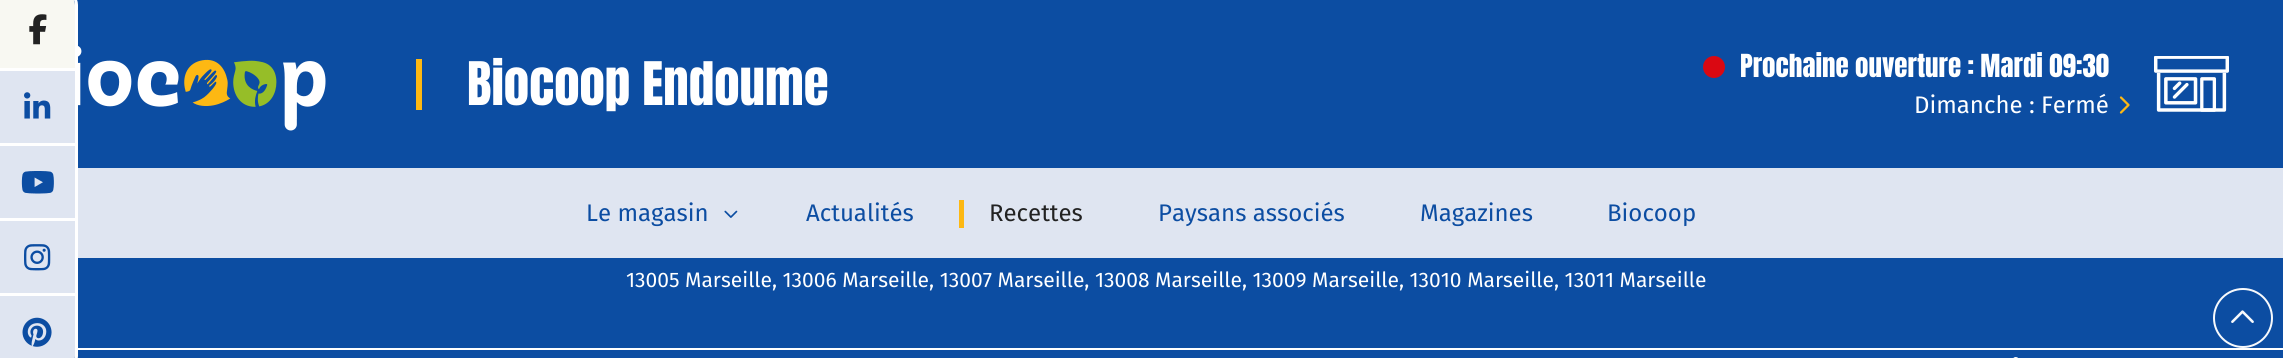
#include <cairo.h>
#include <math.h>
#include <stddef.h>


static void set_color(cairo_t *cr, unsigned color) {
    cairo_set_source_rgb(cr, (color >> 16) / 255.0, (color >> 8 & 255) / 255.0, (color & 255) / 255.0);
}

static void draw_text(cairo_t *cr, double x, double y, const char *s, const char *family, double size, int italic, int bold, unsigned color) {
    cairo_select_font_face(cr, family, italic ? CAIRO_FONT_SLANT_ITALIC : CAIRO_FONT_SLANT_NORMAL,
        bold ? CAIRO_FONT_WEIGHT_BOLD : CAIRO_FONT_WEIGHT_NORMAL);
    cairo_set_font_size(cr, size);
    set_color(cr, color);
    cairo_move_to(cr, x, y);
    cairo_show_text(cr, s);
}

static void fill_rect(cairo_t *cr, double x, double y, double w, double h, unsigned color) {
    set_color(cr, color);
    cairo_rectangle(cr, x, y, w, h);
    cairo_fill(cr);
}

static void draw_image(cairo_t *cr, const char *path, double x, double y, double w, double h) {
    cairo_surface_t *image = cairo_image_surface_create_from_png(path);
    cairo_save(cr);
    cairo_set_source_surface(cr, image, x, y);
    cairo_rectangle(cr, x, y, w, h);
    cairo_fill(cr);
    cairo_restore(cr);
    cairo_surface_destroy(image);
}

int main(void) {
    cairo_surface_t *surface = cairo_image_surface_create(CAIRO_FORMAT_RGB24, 2283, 358);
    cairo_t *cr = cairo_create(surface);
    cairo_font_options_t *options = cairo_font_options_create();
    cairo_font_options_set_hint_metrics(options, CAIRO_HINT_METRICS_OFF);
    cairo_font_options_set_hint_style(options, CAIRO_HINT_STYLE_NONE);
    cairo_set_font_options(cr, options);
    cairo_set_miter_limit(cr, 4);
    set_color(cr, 0x0C4DA2);
    cairo_paint(cr);
    draw_image(cr, "assets/img1.png", 78, 46, 248, 85);
    fill_rect(cr, 416, 59, 6, 51, 0xFDB813);
    draw_text(cr, 467, 105, "Biocoop Endoume", "Anton", 51, 0, 0, 0xFFFFFF);
    set_color(cr, 0xDA0812);
    cairo_new_path(cr);
    cairo_arc(cr, 1714, 67, 11, 0, 2 * M_PI);
    cairo_fill(cr);
    draw_text(cr, 1740, 77, "Prochaine ouverture : Mardi 09:30", "Anton", 27, 0, 0, 0xFFFFFF);
    draw_image(cr, "assets/img2.png", 2154, 56, 75, 56);
    draw_text(cr, 1914, 113, "Dimanche : Fermé", "Fira Sans", 24, 0, 0, 0xFFFFFF);
    draw_image(cr, "assets/img3.png", 2119, 96, 11, 18);
    fill_rect(cr, 78, 168, 2205, 90, 0xDFE5F1);
    draw_text(cr, 586, 221, "Le magasin", "Fira Sans", 24, 0, 0, 0x0C4DA2);
    draw_image(cr, "assets/img4.png", 724, 210, 14, 8);
    draw_text(cr, 806, 221, "Actualités", "Fira Sans", 24, 0, 0, 0x0C4DA2);
    fill_rect(cr, 959, 200, 5, 28, 0xFDB813);
    draw_text(cr, 989, 221, "Recettes", "Fira Sans", 24, 0, 0, 0x222222);
    draw_text(cr, 1158, 221, "Paysans associés", "Fira Sans", 24, 0, 0, 0x0C4DA2);
    draw_text(cr, 1420, 221, "Magazines", "Fira Sans", 24, 0, 0, 0x0C4DA2);
    draw_text(cr, 1607, 221, "Biocoop", "Fira Sans", 24, 0, 0, 0x0C4DA2);
    cairo_new_path(cr);
    cairo_arc(cr, 2243, 318, 29, 0, 2 * M_PI);
    set_color(cr, 0xF7F9FC);
    cairo_stroke(cr);
    draw_image(cr, "assets/img5.png", 2231, 310, 23, 13);
    cairo_new_path(cr);
    cairo_move_to(cr, -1.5, -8.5);
    cairo_line_to(cr, 63, -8.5);
    cairo_curve_to(cr, 70.5, -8.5, 76.5, -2.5, 76.5, 5);
    cairo_line_to(cr, 76.5, 356);
    cairo_curve_to(cr, 76.5, 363.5, 70.5, 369.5, 63, 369.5);
    cairo_line_to(cr, -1.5, 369.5);
    cairo_close_path(cr);
    set_color(cr, 0xFFFFFF);
    cairo_set_line_width(cr, 3);
    cairo_stroke(cr);
    set_color(cr, 0xF8F8F2);
    cairo_new_path(cr);
    cairo_move_to(cr, 0, -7);
    cairo_line_to(cr, 63, -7);
    cairo_curve_to(cr, 69.5, -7, 75, -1.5, 75, 5);
    cairo_line_to(cr, 75, 68);
    cairo_line_to(cr, 0, 68);
    cairo_close_path(cr);
    cairo_fill(cr);
    draw_image(cr, "assets/img6.png", 29, 14, 18, 31);
    fill_rect(cr, 0, 71, 75, 72, 0xDFE5F1);
    fill_rect(cr, 0, 68, 75, 3, 0xFFFFFF);
    draw_image(cr, "assets/img7.png", 24, 92, 27, 27);
    fill_rect(cr, 0, 146, 75, 72, 0xDFE5F1);
    fill_rect(cr, 0, 143, 75, 3, 0xFFFFFF);
    draw_image(cr, "assets/img8.png", 21, 171, 33, 23);
    fill_rect(cr, 0, 221, 75, 72, 0xDFE5F1);
    fill_rect(cr, 0, 218, 75, 3, 0xFFFFFF);
    draw_image(cr, "assets/img9.png", 24, 244, 27, 27);
    set_color(cr, 0xDFE5F1);
    cairo_new_path(cr);
    cairo_move_to(cr, 0, 296);
    cairo_line_to(cr, 75, 296);
    cairo_line_to(cr, 75, 356);
    cairo_curve_to(cr, 75, 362.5, 69.5, 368, 63, 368);
    cairo_line_to(cr, 0, 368);
    cairo_close_path(cr);
    cairo_fill(cr);
    fill_rect(cr, 0, 293, 75, 3, 0xFFFFFF);
    draw_image(cr, "assets/img10.png", 22, 317, 30, 30);
    draw_text(cr, 626, 287, "13005 Marseille, 13006 Marseille, 13007 Marseille, 13008 Marseille, 13009 Marseille, 13010 Marseille, 13011 Marseille", "Fira Sans", 21, 0, 0, 0xFFFFFF);
    fill_rect(cr, 78, 348, 2205, 2, 0xFFFFFF);
    draw_image(cr, "assets/img11.png", 2013, 357, 5, 1);
    cairo_surface_write_to_png(surface, "output.png");
    cairo_font_options_destroy(options);
    cairo_destroy(cr);
    cairo_surface_destroy(surface);
    return 0;
}
